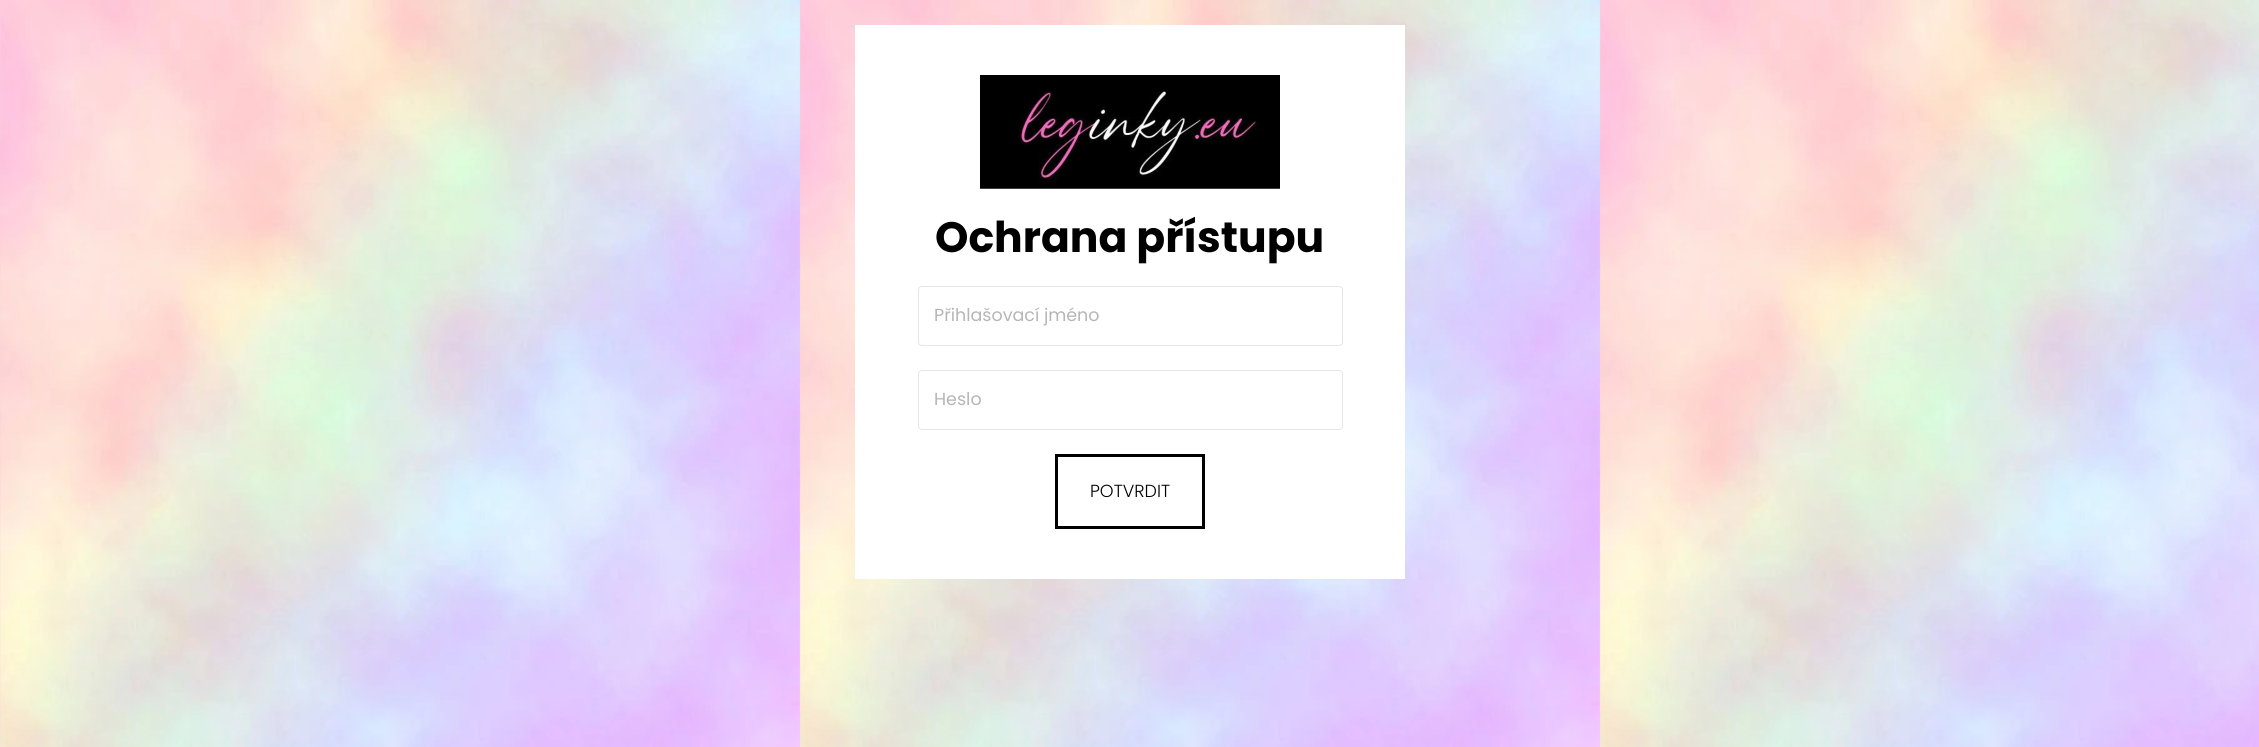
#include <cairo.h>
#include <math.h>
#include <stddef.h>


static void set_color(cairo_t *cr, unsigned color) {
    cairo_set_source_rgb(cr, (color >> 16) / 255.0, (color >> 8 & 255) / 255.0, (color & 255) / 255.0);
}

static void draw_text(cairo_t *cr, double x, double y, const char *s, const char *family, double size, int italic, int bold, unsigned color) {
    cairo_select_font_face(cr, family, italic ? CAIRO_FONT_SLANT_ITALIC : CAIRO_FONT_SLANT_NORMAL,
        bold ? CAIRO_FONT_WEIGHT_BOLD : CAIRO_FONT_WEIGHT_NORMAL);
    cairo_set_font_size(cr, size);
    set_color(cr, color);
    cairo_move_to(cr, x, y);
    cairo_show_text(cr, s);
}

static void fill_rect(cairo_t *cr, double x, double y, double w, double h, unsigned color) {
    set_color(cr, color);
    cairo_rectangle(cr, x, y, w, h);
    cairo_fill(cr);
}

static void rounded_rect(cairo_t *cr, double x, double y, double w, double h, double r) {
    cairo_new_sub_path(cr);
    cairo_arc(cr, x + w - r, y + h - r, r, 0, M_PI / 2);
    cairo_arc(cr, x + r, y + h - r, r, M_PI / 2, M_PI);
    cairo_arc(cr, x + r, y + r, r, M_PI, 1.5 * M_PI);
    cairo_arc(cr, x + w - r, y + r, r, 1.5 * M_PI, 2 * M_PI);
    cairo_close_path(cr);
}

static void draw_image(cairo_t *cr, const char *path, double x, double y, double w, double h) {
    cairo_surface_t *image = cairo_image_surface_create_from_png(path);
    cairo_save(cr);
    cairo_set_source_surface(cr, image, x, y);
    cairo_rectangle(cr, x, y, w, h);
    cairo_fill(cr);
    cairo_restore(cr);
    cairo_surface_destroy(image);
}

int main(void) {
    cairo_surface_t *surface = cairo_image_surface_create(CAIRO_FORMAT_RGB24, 2259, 747);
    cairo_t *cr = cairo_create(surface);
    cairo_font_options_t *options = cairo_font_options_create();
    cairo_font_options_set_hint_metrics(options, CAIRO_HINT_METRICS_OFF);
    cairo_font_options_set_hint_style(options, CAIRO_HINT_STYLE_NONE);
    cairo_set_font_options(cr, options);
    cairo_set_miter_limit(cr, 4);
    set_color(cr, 0xFFFFFF);
    cairo_paint(cr);
    draw_image(cr, "assets/img1.png", 0, 0, 2259, 747);
    fill_rect(cr, 855, 25, 550, 554, 0xFFFFFF);
    draw_image(cr, "assets/img2.png", 980, 75, 300, 114);
    draw_text(cr, 935, 252, "Ochrana přístupu", "Poppins", 42.5, 0, 1, 0x000000);
    rounded_rect(cr, 918.5, 286.5, 424, 59, 3.5);
    set_color(cr, 0xE6E6E6);
    cairo_set_line_width(cr, 1);
    cairo_stroke(cr);
    draw_text(cr, 934, 321, "Přihlašovací jméno", "Poppins", 17.5, 0, 0, 0xB6B6B6);
    rounded_rect(cr, 918.5, 370.5, 424, 59, 3.5);
    set_color(cr, 0xE6E6E6);
    cairo_stroke(cr);
    draw_text(cr, 934, 405, "Heslo", "Poppins", 17.5, 0, 0, 0xB6B6B6);
    cairo_rectangle(cr, 1056.5, 455.5, 147, 72);
    set_color(cr, 0x000000);
    cairo_set_line_width(cr, 3);
    cairo_stroke(cr);
    draw_text(cr, 1090, 497, "POTVRDIT", "Poppins Light", 17.5, 0, 0, 0x000000);
    cairo_surface_write_to_png(surface, "output.png");
    cairo_font_options_destroy(options);
    cairo_destroy(cr);
    cairo_surface_destroy(surface);
    return 0;
}
